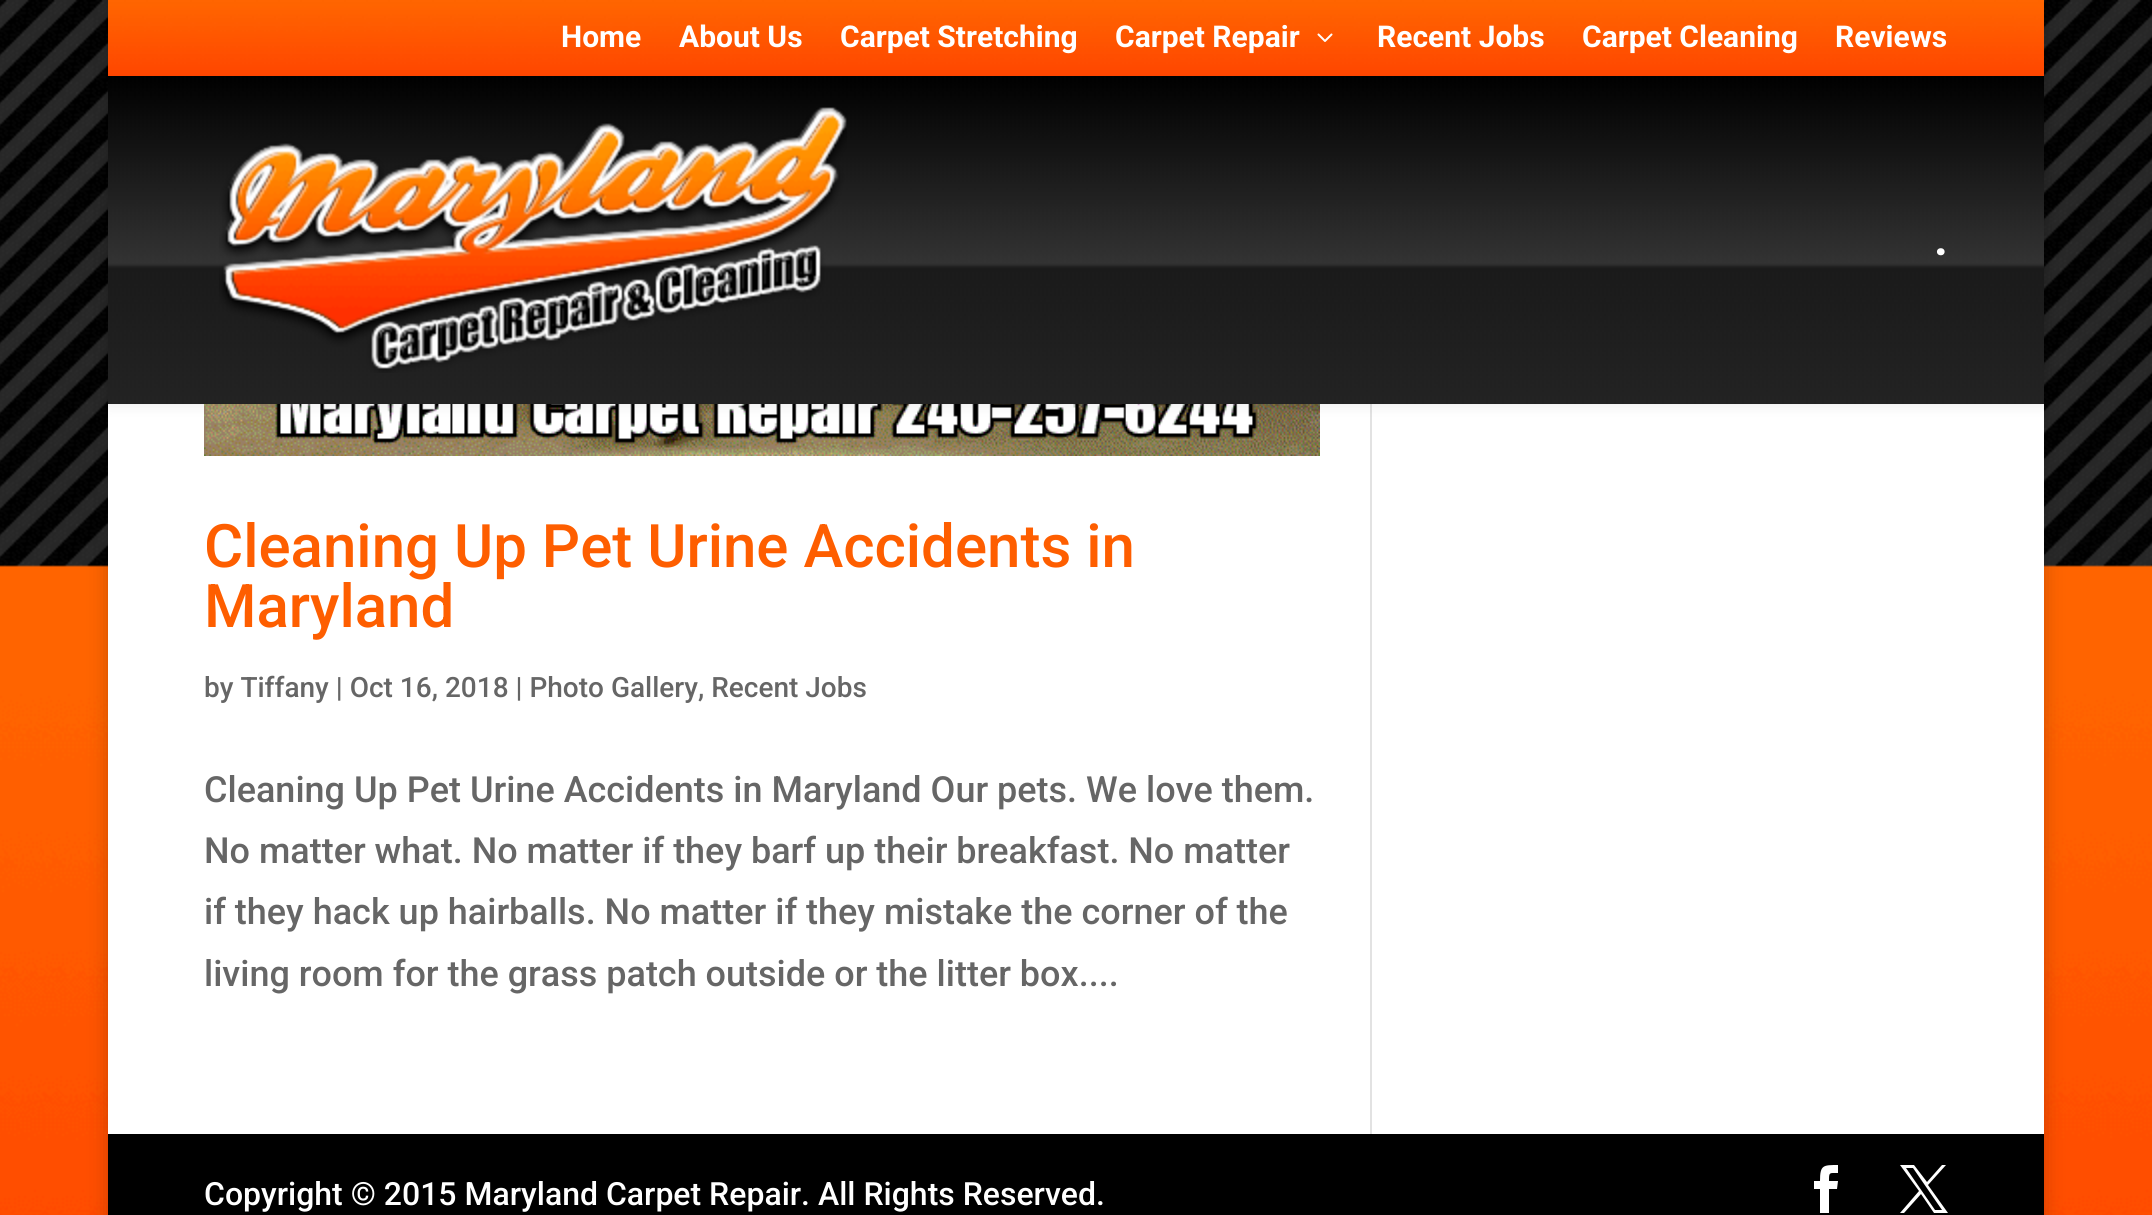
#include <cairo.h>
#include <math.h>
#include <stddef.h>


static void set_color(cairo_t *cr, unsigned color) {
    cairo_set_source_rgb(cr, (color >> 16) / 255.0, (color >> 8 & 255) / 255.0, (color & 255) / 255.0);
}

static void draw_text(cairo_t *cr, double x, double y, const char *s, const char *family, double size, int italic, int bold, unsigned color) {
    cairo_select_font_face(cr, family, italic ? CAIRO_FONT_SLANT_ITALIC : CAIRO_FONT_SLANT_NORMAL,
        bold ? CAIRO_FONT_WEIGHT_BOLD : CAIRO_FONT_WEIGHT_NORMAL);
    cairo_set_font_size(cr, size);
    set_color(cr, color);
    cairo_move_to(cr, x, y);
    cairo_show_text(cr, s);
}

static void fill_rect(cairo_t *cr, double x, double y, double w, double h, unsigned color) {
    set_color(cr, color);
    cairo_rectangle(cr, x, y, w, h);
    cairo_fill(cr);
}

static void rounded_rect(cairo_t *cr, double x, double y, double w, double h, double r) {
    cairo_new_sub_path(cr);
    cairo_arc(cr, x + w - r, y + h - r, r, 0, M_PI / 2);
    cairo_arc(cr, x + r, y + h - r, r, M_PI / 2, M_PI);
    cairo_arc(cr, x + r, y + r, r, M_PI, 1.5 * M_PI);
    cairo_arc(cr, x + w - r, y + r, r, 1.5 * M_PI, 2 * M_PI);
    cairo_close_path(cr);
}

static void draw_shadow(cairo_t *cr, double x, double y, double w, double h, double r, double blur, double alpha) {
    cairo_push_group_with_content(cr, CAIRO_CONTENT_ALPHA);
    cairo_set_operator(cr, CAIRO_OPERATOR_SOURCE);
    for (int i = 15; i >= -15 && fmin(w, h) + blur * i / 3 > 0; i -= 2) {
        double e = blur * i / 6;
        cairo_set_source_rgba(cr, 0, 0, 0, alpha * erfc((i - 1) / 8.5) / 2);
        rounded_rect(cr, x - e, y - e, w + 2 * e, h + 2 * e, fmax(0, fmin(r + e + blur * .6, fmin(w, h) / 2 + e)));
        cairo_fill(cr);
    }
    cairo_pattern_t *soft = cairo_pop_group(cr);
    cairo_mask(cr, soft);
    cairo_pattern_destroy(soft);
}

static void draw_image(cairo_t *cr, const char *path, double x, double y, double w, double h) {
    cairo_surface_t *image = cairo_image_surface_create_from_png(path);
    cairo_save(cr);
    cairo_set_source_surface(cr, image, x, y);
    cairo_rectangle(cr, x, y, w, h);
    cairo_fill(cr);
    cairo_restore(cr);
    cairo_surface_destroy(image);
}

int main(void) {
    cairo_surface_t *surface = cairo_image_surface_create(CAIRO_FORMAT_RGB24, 2152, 1215);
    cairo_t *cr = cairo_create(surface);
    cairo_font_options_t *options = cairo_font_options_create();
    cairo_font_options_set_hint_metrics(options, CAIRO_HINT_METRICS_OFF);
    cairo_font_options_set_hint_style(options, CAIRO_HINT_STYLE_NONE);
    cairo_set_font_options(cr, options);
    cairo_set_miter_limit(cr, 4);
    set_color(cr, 0xFFFFFF);
    cairo_paint(cr);
    draw_image(cr, "assets/img1.png", 0, 0, 2152, 1215);
    set_color(cr, 0x000000);
    draw_shadow(cr, 108, -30, 1936, 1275, 0, 10, 0.2);
    fill_rect(cr, 108, 404, 1936, 730, 0xFFFFFF);
    draw_image(cr, "assets/img6.png", 204, 404, 1116, 52);
    fill_rect(cr, 1370, 404, 2, 730, 0xE2E2E2);
    set_color(cr, 0x000000);
    draw_shadow(cr, 108, 76, 1936, 328, 0, 7, 0.1);
    draw_image(cr, "assets/img2.png", 108, 0, 1936, 76);
    draw_text(cr, 561, 47, "Home", "Roboto", 30, 0, 1, 0xFFFFFF);
    draw_text(cr, 679, 47, "About Us", "Roboto", 30, 0, 1, 0xFFFFFF);
    draw_text(cr, 840, 47, "Carpet Stretching", "Roboto", 30, 0, 1, 0xFFFFFF);
    draw_text(cr, 1115, 47, "Carpet Repair", "Roboto", 30, 0, 1, 0xFFFFFF);
    draw_image(cr, "assets/img3.png", 1317, 33, 16, 9);
    draw_text(cr, 1377, 47, "Recent Jobs", "Roboto", 30, 0, 1, 0xFFFFFF);
    draw_text(cr, 1582, 47, "Carpet Cleaning", "Roboto", 30, 0, 1, 0xFFFFFF);
    draw_text(cr, 1835, 47, "Reviews", "Roboto", 30, 0, 1, 0xFFFFFF);
    draw_image(cr, "assets/img4.png", 108, 76, 1936, 328);
    draw_image(cr, "assets/img5.png", 219, 107, 628, 266);
    draw_text(cr, 1934, 255, ".", "Roboto", 48, 0, 1, 0xFFFFFF);
    draw_text(cr, 204, 567, "Cleaning Up Pet Urine Accidents in", "Roboto Medium", 60, 0, 0, 0xFE5E00);
    draw_text(cr, 204, 627, "Maryland", "Roboto Medium", 60, 0, 0, 0xFE5E00);
    draw_text(cr, 204, 697, "by Tiffany | Oct 16, 2018 | Photo Gallery, Recent Jobs", "Roboto Medium", 28, 0, 0, 0x666666);
    draw_text(cr, 204, 802, "Cleaning Up Pet Urine Accidents in Maryland Our pets. We love them.", "Roboto Medium", 36, 0, 0, 0x666666);
    draw_text(cr, 204, 863, "No matter what. No matter if they barf up their breakfast. No matter", "Roboto Medium", 36, 0, 0, 0x666666);
    draw_text(cr, 204, 924, "if they hack up hairballs. No matter if they mistake the corner of the", "Roboto Medium", 36, 0, 0, 0x666666);
    draw_text(cr, 204, 986, "living room for the grass patch outside or the litter box....", "Roboto Medium", 36, 0, 0, 0x666666);
    fill_rect(cr, 108, 1134, 1936, 81, 0x000000);
    draw_text(cr, 204, 1205, "Copyright © 2015 Maryland Carpet Repair. All Rights Reserved.", "Roboto Medium", 32, 0, 0, 0xFFFFFF);
    cairo_new_path(cr);
    cairo_move_to(cr, 1820, 1213);
    cairo_line_to(cr, 1829, 1213);
    cairo_line_to(cr, 1829, 1189);
    cairo_line_to(cr, 1837, 1189);
    cairo_line_to(cr, 1838, 1181);
    cairo_line_to(cr, 1829, 1181);
    cairo_curve_to(cr, 1829, 1172, 1829, 1173, 1838, 1173);
    cairo_line_to(cr, 1838, 1165);
    cairo_curve_to(cr, 1823, 1165, 1820, 1165, 1820, 1181);
    cairo_line_to(cr, 1814, 1181);
    cairo_line_to(cr, 1814, 1189);
    cairo_line_to(cr, 1820, 1189);
    cairo_close_path(cr);
    cairo_fill(cr);
    cairo_new_path(cr);
    cairo_move_to(cr, 1900, 1165);
    cairo_line_to(cr, 1919, 1191);
    cairo_line_to(cr, 1900, 1213);
    cairo_line_to(cr, 1904, 1213);
    cairo_line_to(cr, 1921, 1194);
    cairo_line_to(cr, 1934, 1213);
    cairo_line_to(cr, 1948, 1213);
    cairo_line_to(cr, 1928, 1185);
    cairo_line_to(cr, 1946, 1165);
    cairo_line_to(cr, 1942, 1165);
    cairo_line_to(cr, 1927, 1182);
    cairo_line_to(cr, 1914, 1165);
    cairo_close_path(cr);
    cairo_move_to(cr, 1906, 1168);
    cairo_line_to(cr, 1913, 1168);
    cairo_line_to(cr, 1942, 1210);
    cairo_line_to(cr, 1935, 1210);
    cairo_close_path(cr);
    cairo_fill(cr);
    cairo_surface_write_to_png(surface, "output.png");
    cairo_font_options_destroy(options);
    cairo_destroy(cr);
    cairo_surface_destroy(surface);
    return 0;
}
